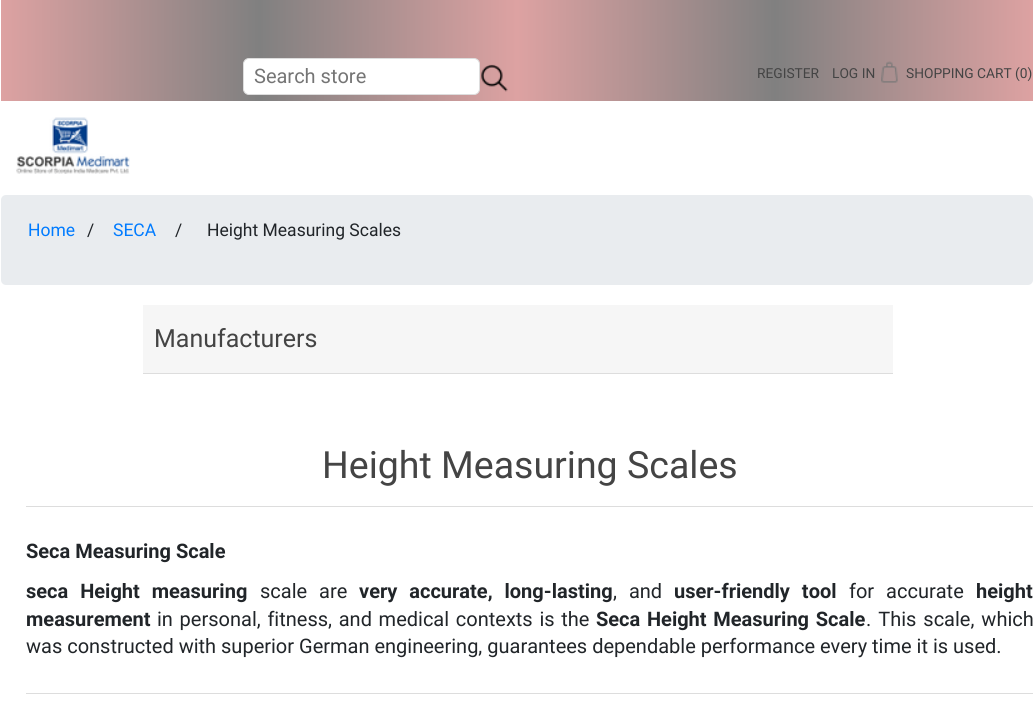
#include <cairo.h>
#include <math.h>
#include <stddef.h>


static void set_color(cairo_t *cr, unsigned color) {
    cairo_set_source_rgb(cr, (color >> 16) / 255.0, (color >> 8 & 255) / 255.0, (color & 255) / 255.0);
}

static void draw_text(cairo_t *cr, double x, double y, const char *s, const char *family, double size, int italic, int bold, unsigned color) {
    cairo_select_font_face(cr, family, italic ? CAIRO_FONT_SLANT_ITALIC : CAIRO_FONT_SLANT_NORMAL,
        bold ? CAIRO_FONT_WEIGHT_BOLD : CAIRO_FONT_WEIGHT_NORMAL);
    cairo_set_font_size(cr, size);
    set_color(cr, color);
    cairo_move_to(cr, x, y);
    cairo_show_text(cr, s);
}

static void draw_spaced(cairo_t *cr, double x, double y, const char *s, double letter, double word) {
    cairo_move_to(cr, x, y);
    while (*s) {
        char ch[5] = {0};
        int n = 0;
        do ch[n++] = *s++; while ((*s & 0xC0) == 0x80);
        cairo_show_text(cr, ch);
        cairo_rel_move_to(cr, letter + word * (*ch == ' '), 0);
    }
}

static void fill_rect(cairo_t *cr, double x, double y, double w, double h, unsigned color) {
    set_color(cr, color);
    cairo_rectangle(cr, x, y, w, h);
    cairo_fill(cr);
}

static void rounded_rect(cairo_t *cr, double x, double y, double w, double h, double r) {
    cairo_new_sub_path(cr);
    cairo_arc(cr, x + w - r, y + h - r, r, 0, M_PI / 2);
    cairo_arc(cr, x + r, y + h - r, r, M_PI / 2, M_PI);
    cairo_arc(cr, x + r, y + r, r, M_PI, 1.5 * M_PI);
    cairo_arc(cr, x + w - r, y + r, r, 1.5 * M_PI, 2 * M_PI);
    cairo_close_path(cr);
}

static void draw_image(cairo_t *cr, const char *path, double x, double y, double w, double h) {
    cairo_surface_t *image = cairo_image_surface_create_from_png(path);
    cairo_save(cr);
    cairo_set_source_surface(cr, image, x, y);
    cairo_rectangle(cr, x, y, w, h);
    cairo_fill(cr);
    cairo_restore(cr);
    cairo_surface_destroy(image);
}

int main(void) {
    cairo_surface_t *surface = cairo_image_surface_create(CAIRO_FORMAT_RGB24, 1033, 705);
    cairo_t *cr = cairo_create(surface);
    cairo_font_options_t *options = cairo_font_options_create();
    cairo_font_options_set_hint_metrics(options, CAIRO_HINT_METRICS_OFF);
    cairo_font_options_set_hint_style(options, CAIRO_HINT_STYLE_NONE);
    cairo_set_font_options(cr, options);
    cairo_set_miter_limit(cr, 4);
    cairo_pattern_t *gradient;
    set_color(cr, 0xFFFFFF);
    cairo_paint(cr);
    gradient = cairo_pattern_create_linear(1.2, 40, 1033, 40);
    cairo_pattern_add_color_stop_rgba(gradient, 0, 0.867, 0.635, 0.635, 1);
    cairo_pattern_add_color_stop_rgba(gradient, 0.25, 0.502, 0.502, 0.502, 1);
    cairo_pattern_add_color_stop_rgba(gradient, 0.5, 0.867, 0.635, 0.635, 1);
    cairo_pattern_add_color_stop_rgba(gradient, 0.75, 0.502, 0.502, 0.502, 1);
    cairo_pattern_add_color_stop_rgba(gradient, 1, 0.867, 0.635, 0.635, 1);
    cairo_set_source(cr, gradient);
    cairo_pattern_destroy(gradient);
    cairo_rectangle(cr, 1, 0, 1032, 101);
    cairo_fill(cr);
    set_color(cr, 0xFFFFFF);
    rounded_rect(cr, 243.5, 58.5, 236, 36, 5.5);
    cairo_fill_preserve(cr);
    set_color(cr, 0xDDDDDD);
    cairo_set_line_width(cr, 1);
    cairo_stroke(cr);
    draw_text(cr, 254, 83, "Search store", "Roboto", 20, 0, 0, 0x757575);
    draw_image(cr, "assets/img1.png", 481, 64, 27, 28);
    draw_text(cr, 757, 78, "REGISTER", "Roboto", 13.75, 0, 0, 0x444444);
    draw_text(cr, 832, 78, "LOG IN", "Roboto", 13.75, 0, 0, 0x444444);
    draw_image(cr, "assets/img2.png", 881, 61, 17, 22);
    draw_text(cr, 906, 78, "SHOPPING CART (0)", "Roboto", 13.75, 0, 0, 0x444444);
    draw_image(cr, "assets/img3.png", 16, 117, 114, 57);
    set_color(cr, 0xE9ECEF);
    rounded_rect(cr, 1, 195, 1032, 90, 5);
    cairo_fill(cr);
    draw_text(cr, 28, 236, "Home", "Roboto", 17.5, 0, 0, 0x007BFF);
    draw_text(cr, 87, 236, "/", "Roboto", 17.5, 0, 0, 0x212529);
    draw_text(cr, 113, 236, "SECA", "Roboto", 17.5, 0, 0, 0x007BFF);
    draw_text(cr, 175, 236, "/", "Roboto", 17.5, 0, 0, 0x212529);
    draw_text(cr, 207, 236, "Height Measuring Scales", "Roboto", 17.5, 0, 0, 0x212529);
    fill_rect(cr, 143, 305, 750, 68, 0xF6F6F6);
    fill_rect(cr, 143, 373, 750, 1, 0xDDDDDD);
    draw_text(cr, 154, 347, "Manufacturers", "Roboto", 25, 0, 0, 0x444444);
    fill_rect(cr, 26, 506, 1007, 1, 0xDDDDDD);
    draw_text(cr, 322, 478, "Height Measuring Scales", "Roboto", 37.5, 0, 0, 0x444444);
    draw_text(cr, 26, 558, "Seca Measuring Scale", "Roboto", 20, 0, 1, 0x212529);
    draw_spaced(cr, 26, 598, "seca Height measuring", 0, 7);
    cairo_select_font_face(cr, "Roboto", CAIRO_FONT_SLANT_NORMAL, CAIRO_FONT_WEIGHT_NORMAL);
    draw_spaced(cr, 260, 598, "scale are", 0, 7);
    cairo_select_font_face(cr, "Roboto", CAIRO_FONT_SLANT_NORMAL, CAIRO_FONT_WEIGHT_BOLD);
    draw_spaced(cr, 359, 598, "very accurate, long-lasting", 0, 7);
    cairo_select_font_face(cr, "Roboto", CAIRO_FONT_SLANT_NORMAL, CAIRO_FONT_WEIGHT_NORMAL);
    draw_spaced(cr, 613, 598, ", and", 0, 7);
    cairo_select_font_face(cr, "Roboto", CAIRO_FONT_SLANT_NORMAL, CAIRO_FONT_WEIGHT_BOLD);
    draw_spaced(cr, 674, 598, "user-friendly tool", 0, 7);
    cairo_select_font_face(cr, "Roboto", CAIRO_FONT_SLANT_NORMAL, CAIRO_FONT_WEIGHT_NORMAL);
    draw_spaced(cr, 849, 598, "for accurate", 0, 7);
    draw_text(cr, 976, 598, "height", "Roboto", 20, 0, 1, 0x212529);
    draw_text(cr, 26, 626, "measurement", "Roboto", 20, 0, 1, 0x212529);
    cairo_select_font_face(cr, "Roboto", CAIRO_FONT_SLANT_NORMAL, CAIRO_FONT_WEIGHT_NORMAL);
    draw_spaced(cr, 157, 626, "in personal, fitness, and medical contexts is the", 0, 1.75);
    cairo_select_font_face(cr, "Roboto", CAIRO_FONT_SLANT_NORMAL, CAIRO_FONT_WEIGHT_BOLD);
    draw_spaced(cr, 596, 626, "Seca Height Measuring Scale", 0, 1.75);
    cairo_select_font_face(cr, "Roboto", CAIRO_FONT_SLANT_NORMAL, CAIRO_FONT_WEIGHT_NORMAL);
    draw_spaced(cr, 866, 626, ". This scale, which", 0, 2);
    draw_text(cr, 26, 653, "was constructed with superior German engineering, guarantees dependable performance every time it is used.", "Roboto", 20, 0, 0, 0x212529);
    fill_rect(cr, 26, 693, 1007, 1, 0xDDDDDD);
    cairo_surface_write_to_png(surface, "output.png");
    cairo_font_options_destroy(options);
    cairo_destroy(cr);
    cairo_surface_destroy(surface);
    return 0;
}
